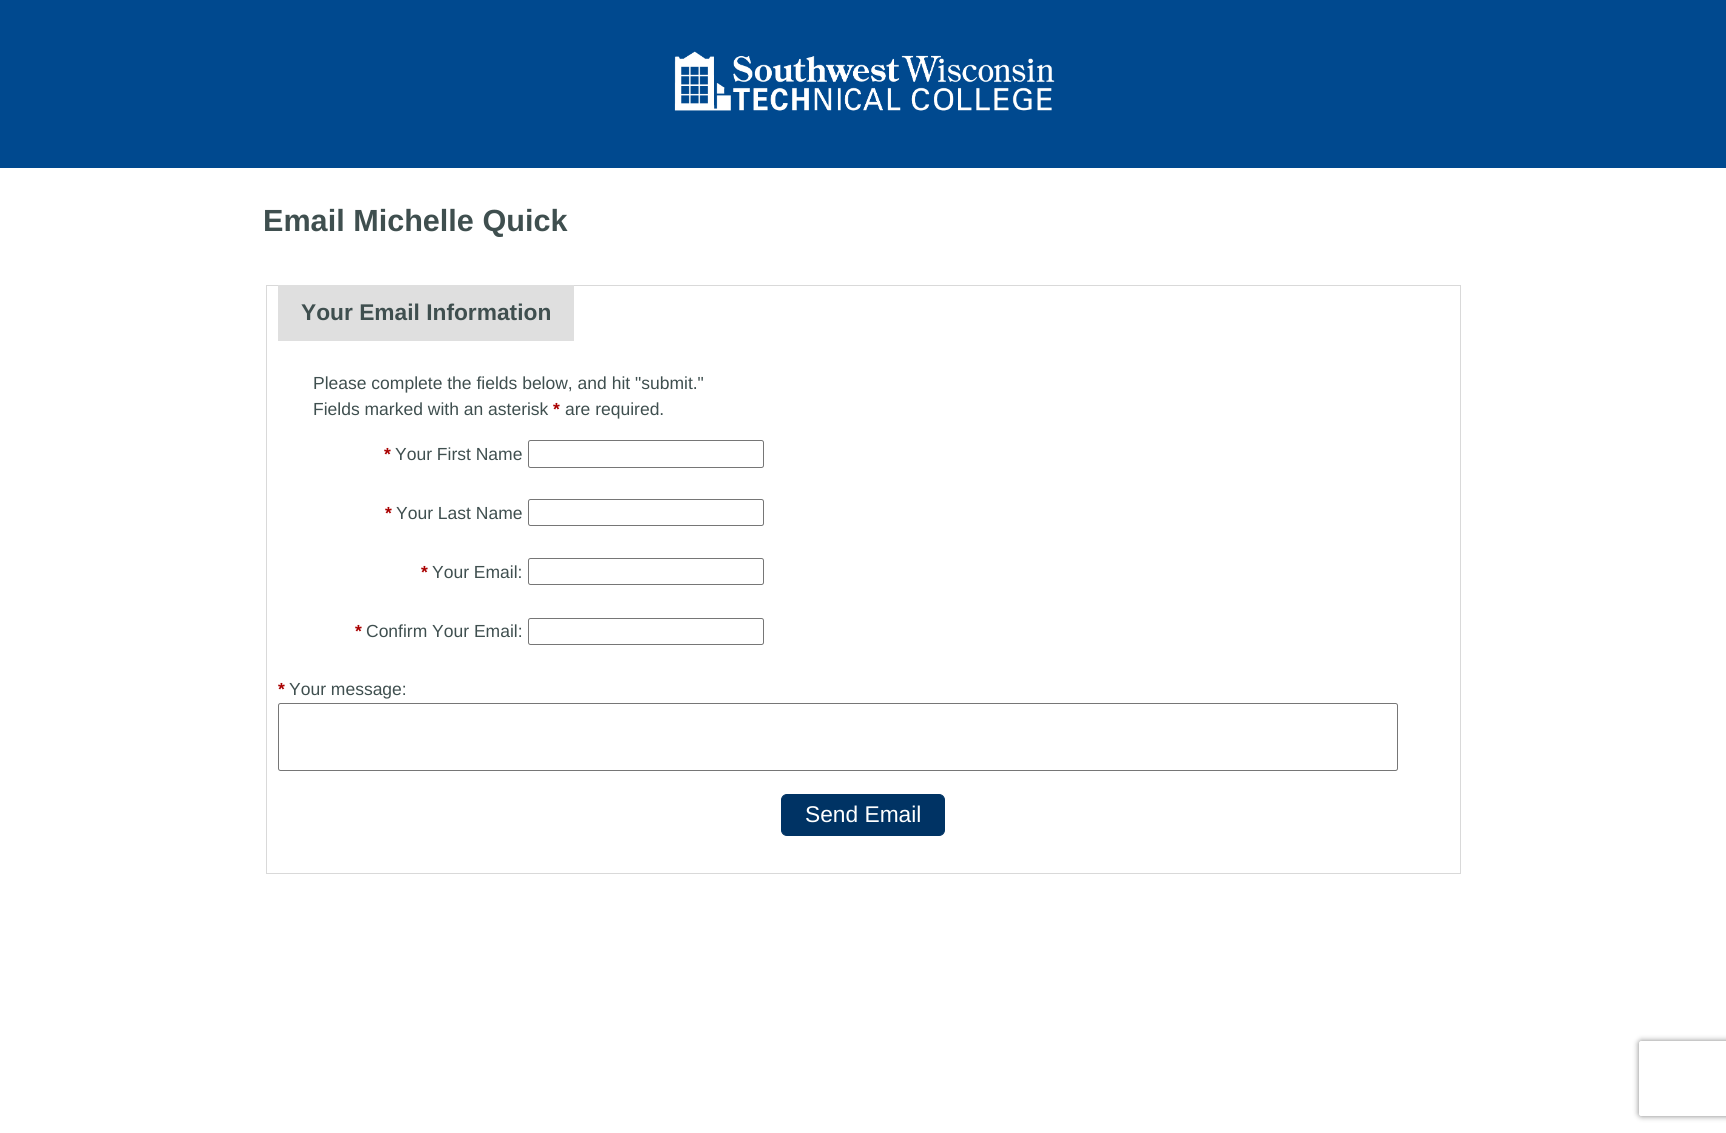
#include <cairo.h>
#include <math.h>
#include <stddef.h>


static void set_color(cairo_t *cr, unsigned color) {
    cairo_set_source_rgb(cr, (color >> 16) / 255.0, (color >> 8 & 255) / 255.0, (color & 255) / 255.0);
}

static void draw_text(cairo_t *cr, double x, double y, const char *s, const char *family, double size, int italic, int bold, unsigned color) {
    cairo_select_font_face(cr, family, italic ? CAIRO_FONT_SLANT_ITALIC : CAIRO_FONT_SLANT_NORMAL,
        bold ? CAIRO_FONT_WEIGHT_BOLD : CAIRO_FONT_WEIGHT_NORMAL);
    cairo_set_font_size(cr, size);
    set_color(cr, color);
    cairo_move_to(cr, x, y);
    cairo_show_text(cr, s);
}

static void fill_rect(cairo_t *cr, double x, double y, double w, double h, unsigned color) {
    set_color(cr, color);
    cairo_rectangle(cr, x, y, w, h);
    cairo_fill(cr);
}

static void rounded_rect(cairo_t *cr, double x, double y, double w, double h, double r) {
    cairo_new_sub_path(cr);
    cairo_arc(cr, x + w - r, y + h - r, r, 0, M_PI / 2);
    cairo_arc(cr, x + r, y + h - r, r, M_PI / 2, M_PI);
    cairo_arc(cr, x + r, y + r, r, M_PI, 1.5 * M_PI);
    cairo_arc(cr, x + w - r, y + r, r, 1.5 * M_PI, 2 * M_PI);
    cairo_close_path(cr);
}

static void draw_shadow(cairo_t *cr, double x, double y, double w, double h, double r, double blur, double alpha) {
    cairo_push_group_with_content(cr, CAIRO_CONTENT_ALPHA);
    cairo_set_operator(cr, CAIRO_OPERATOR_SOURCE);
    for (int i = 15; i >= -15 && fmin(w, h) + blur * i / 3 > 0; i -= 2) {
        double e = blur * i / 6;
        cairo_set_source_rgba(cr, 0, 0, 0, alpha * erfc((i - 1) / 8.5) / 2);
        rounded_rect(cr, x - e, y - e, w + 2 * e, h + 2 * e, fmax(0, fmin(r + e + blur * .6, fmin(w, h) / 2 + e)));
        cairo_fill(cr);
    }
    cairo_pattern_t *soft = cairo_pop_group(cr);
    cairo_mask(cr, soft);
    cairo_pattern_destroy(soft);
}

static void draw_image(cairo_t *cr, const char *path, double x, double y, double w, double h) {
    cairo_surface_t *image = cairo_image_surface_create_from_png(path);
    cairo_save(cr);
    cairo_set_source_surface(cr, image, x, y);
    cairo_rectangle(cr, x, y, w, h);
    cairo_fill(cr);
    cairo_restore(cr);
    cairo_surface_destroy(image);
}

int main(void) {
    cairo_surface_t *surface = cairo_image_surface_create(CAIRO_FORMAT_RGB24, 1726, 1133);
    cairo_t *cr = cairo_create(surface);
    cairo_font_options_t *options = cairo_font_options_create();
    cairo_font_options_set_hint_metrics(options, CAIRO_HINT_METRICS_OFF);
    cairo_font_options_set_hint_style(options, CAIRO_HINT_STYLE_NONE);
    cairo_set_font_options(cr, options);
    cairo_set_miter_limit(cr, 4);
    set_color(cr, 0xFFFFFF);
    cairo_paint(cr);
    fill_rect(cr, 0, 0, 1726, 168, 0x00498F);
    draw_image(cr, "assets/img1.png", 674, 51, 381, 60);
    draw_text(cr, 263, 231, "Email Michelle Quick", "Liberation Sans", 30.6, 0, 1, 0x3F4F4F);
    cairo_rectangle(cr, 266.5, 285.5, 1194, 588);
    set_color(cr, 0xD9D9D9);
    cairo_set_line_width(cr, 1);
    cairo_stroke(cr);
    fill_rect(cr, 278, 285, 296, 56, 0xDFDFDF);
    draw_text(cr, 301, 320, "Your Email Information", "Liberation Sans", 22.75, 0, 1, 0x3F4F4F);
    draw_text(cr, 313, 389, "Please complete the fields below, and hit \"submit.\"", "Liberation Sans", 17.5, 0, 0, 0x3F4F4F);
    draw_text(cr, 313, 415, "Fields marked with an asterisk", "Liberation Sans", 17.5, 0, 0, 0x3F4F4F);
    draw_text(cr, 553, 415, "*", "Liberation Sans", 17.5, 0, 1, 0xA90000);
    draw_text(cr, 565, 415, "are required.", "Liberation Sans", 17.5, 0, 0, 0x3F4F4F);
    draw_text(cr, 384, 460, "*", "Liberation Sans", 17.5, 0, 1, 0xA90000);
    draw_text(cr, 395, 460, "Your First Name", "Liberation Sans", 17.5, 0, 0, 0x3F4F4F);
    rounded_rect(cr, 528.5, 440.5, 235, 27, 2);
    set_color(cr, 0x767676);
    cairo_stroke(cr);
    draw_text(cr, 385, 519, "*", "Liberation Sans", 17.5, 0, 1, 0xA90000);
    draw_text(cr, 396, 519, "Your Last Name", "Liberation Sans", 17.5, 0, 0, 0x3F4F4F);
    rounded_rect(cr, 528.5, 499.5, 235, 26, 2);
    set_color(cr, 0x767676);
    cairo_stroke(cr);
    draw_text(cr, 421, 578, "*", "Liberation Sans", 17.5, 0, 1, 0xA90000);
    draw_text(cr, 432, 578, "Your Email:", "Liberation Sans", 17.5, 0, 0, 0x3F4F4F);
    rounded_rect(cr, 528.5, 558.5, 235, 26, 2);
    set_color(cr, 0x767676);
    cairo_stroke(cr);
    draw_text(cr, 355, 637, "*", "Liberation Sans", 17.5, 0, 1, 0xA90000);
    draw_text(cr, 366, 637, "Confirm Your Email:", "Liberation Sans", 17.5, 0, 0, 0x3F4F4F);
    rounded_rect(cr, 528.5, 618.5, 235, 26, 2);
    set_color(cr, 0x767676);
    cairo_stroke(cr);
    draw_text(cr, 278, 695, "*", "Liberation Sans", 17.5, 0, 1, 0xA90000);
    draw_text(cr, 289, 695, "Your message:", "Liberation Sans", 17.5, 0, 0, 0x3F4F4F);
    rounded_rect(cr, 278.5, 703.5, 1119, 67, 2);
    set_color(cr, 0x767676);
    cairo_stroke(cr);
    set_color(cr, 0x003364);
    rounded_rect(cr, 781.5, 794.5, 163, 41, 5.5);
    cairo_fill_preserve(cr);
    cairo_stroke(cr);
    draw_text(cr, 805, 822, "Send Email", "Liberation Sans", 22.75, 0, 0, 0xFFFFFF);
    cairo_save(cr);
    cairo_set_fill_rule(cr, CAIRO_FILL_RULE_EVEN_ODD);
    cairo_new_path(cr);
    cairo_move_to(cr, 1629, 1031);
    cairo_line_to(cr, 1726, 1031);
    cairo_line_to(cr, 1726, 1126);
    cairo_line_to(cr, 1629, 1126);
    cairo_close_path(cr);
    cairo_move_to(cr, 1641.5, 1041);
    cairo_line_to(cr, 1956.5, 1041);
    cairo_curve_to(cr, 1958, 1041, 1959, 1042, 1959, 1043.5);
    cairo_line_to(cr, 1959, 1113.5);
    cairo_curve_to(cr, 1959, 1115, 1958, 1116, 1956.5, 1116);
    cairo_line_to(cr, 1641.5, 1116);
    cairo_curve_to(cr, 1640, 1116, 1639, 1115, 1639, 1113.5);
    cairo_line_to(cr, 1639, 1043.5);
    cairo_curve_to(cr, 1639, 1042, 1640, 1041, 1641.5, 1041);
    cairo_close_path(cr);
    cairo_clip(cr);
    set_color(cr, 0x808080);
    draw_shadow(cr, 1639, 1041, 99, 75, 2.5, 3, 1);
    cairo_restore(cr);
    cairo_surface_write_to_png(surface, "output.png");
    cairo_font_options_destroy(options);
    cairo_destroy(cr);
    cairo_surface_destroy(surface);
    return 0;
}
